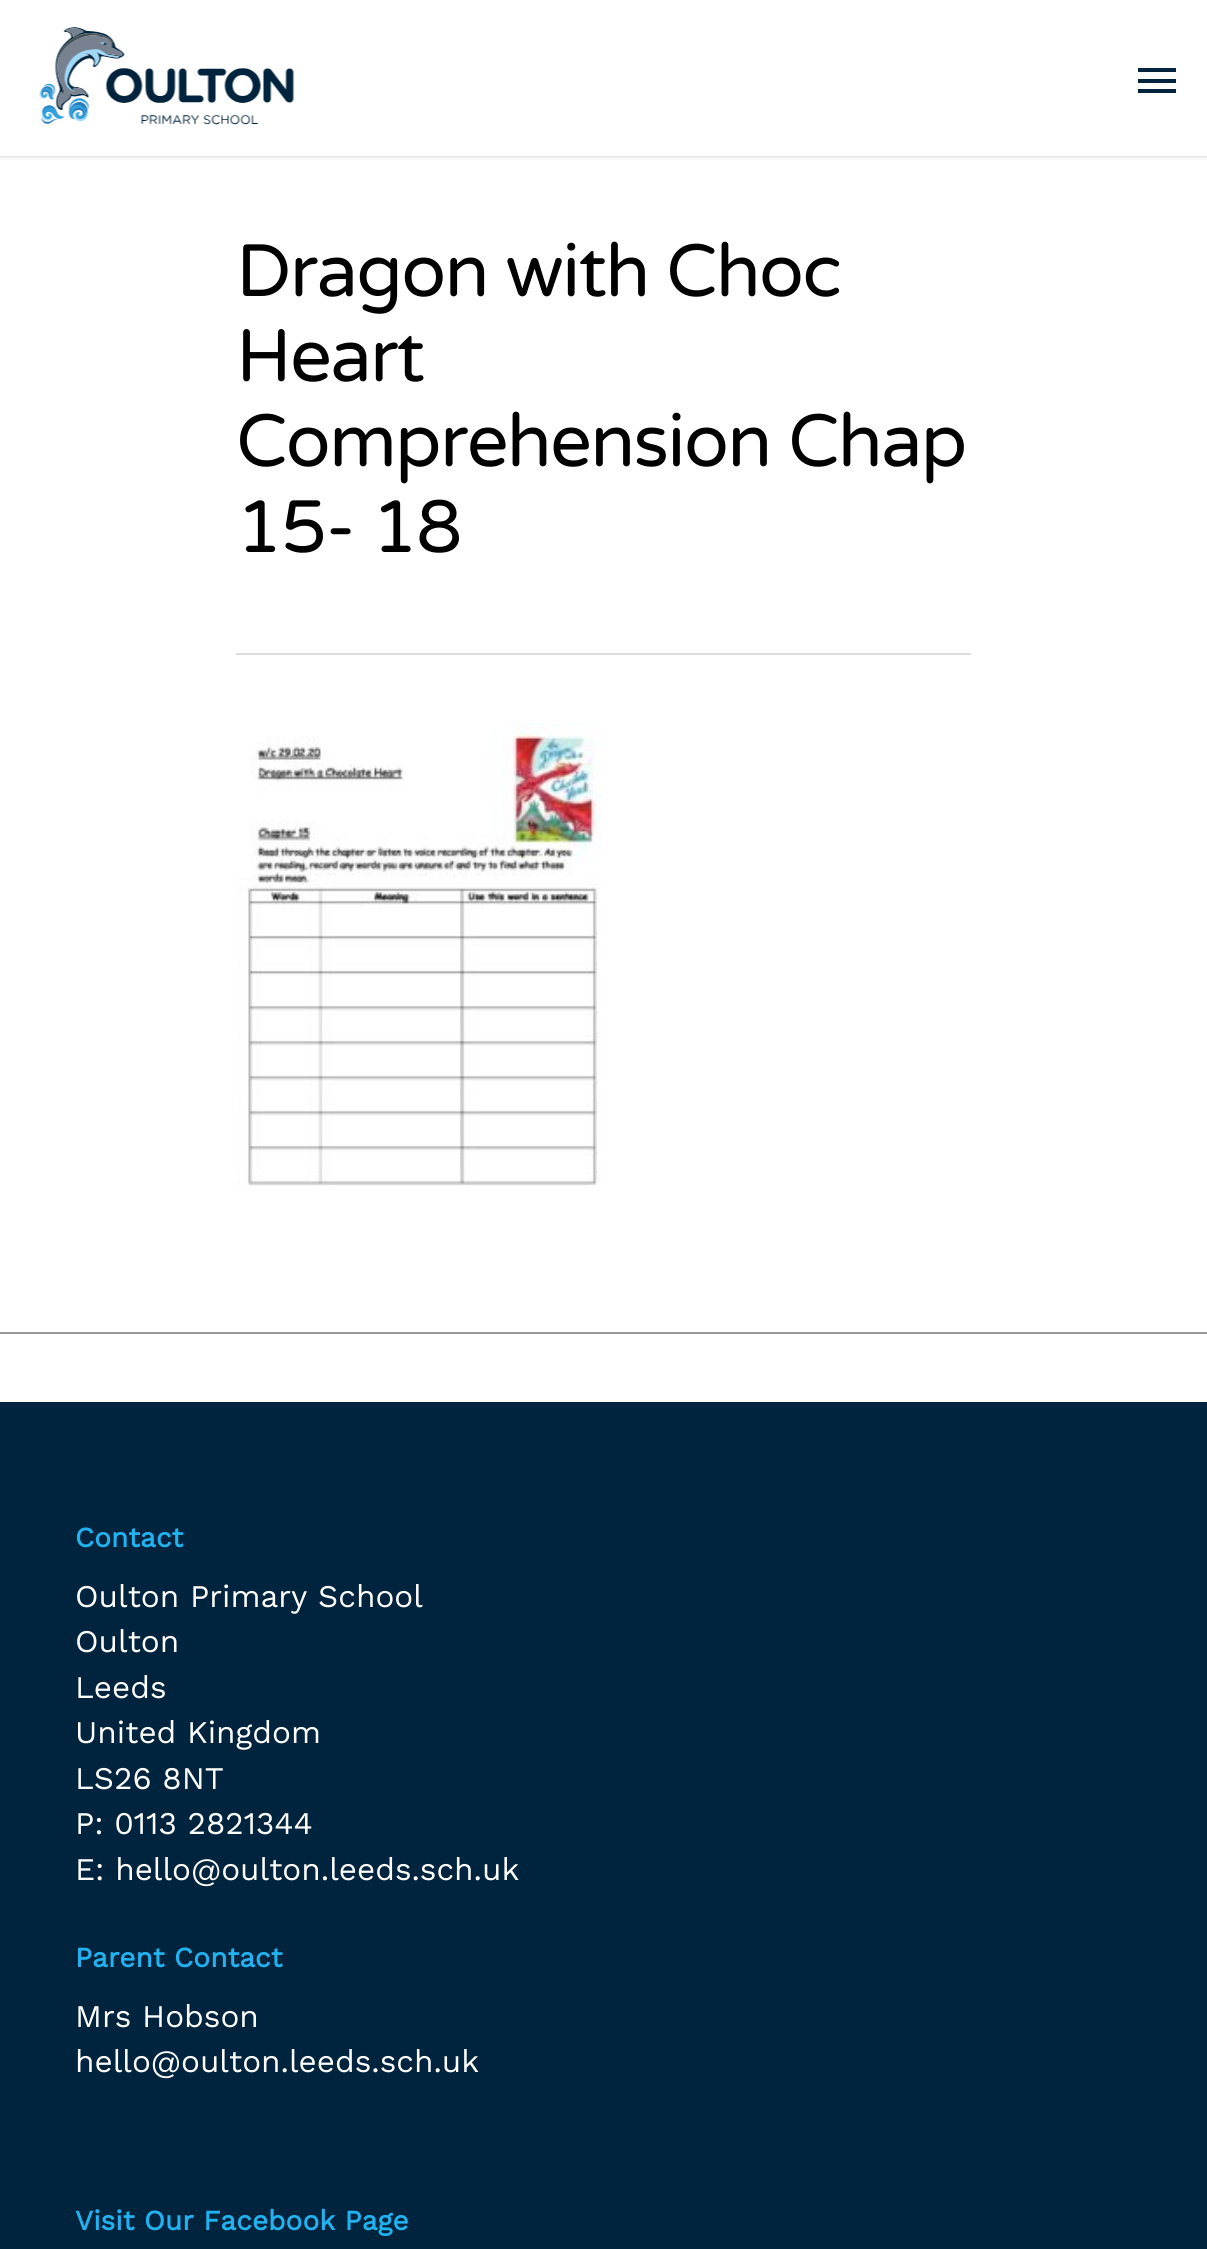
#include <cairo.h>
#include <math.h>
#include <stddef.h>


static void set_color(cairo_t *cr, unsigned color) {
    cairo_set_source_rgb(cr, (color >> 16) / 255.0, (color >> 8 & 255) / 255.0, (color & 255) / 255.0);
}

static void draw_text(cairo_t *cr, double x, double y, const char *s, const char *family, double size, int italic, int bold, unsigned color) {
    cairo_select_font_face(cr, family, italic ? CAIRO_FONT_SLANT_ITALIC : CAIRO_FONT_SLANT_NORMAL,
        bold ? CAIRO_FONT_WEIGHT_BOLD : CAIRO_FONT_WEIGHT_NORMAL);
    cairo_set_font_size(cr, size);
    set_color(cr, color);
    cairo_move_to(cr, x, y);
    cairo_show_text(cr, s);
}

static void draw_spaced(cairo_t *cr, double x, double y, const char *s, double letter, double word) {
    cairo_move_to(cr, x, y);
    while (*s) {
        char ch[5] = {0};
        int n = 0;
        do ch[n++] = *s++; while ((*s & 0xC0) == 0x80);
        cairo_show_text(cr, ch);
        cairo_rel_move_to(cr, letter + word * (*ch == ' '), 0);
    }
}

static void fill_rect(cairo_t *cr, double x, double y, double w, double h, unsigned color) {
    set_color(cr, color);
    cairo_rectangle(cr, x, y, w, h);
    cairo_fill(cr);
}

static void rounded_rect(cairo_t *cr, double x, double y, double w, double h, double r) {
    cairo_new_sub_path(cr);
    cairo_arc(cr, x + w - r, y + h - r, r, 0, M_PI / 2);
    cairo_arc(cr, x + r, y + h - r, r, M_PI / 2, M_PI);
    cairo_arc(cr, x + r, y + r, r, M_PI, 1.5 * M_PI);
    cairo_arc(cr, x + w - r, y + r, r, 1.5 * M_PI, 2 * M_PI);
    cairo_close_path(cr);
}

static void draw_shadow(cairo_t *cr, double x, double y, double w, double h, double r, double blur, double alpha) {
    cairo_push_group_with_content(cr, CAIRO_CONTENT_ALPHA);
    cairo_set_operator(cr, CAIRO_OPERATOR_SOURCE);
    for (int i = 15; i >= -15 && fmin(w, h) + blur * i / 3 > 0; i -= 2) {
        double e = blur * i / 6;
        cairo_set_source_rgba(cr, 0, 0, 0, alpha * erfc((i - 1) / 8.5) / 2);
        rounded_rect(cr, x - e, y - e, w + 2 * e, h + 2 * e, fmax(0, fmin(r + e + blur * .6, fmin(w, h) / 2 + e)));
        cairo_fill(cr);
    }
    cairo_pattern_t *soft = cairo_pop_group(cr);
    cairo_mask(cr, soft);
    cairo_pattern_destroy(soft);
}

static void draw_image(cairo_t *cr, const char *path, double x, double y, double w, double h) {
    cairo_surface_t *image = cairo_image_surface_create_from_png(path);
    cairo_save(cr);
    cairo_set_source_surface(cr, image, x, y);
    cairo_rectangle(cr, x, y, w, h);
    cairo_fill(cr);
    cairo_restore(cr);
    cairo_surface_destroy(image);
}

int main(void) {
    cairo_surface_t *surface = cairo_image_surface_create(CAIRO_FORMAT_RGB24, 1207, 2249);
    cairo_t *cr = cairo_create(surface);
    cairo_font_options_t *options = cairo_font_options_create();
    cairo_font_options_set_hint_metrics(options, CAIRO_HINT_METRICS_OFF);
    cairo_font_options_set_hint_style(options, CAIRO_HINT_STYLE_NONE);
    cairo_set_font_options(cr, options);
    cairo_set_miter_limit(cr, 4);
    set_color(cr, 0xFFFFFF);
    cairo_paint(cr);
    set_color(cr, 0x000000);
    draw_shadow(cr, 0, 0, 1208, 156, 0, 2.5, 0.22);
    fill_rect(cr, 0, 0, 1207, 156, 0xFFFFFF);
    draw_image(cr, "assets/img1.png", 39, 27, 255, 98);
    fill_rect(cr, 1138, 68, 38, 4, 0x00243D);
    fill_rect(cr, 1138, 89, 38, 4, 0x00243D);
    fill_rect(cr, 1138, 79, 38, 4, 0x00243D);
    fill_rect(cr, 236, 653, 735, 2, 0xDDDDDD);
    cairo_select_font_face(cr, "Varela Round", CAIRO_FONT_SLANT_NORMAL, CAIRO_FONT_WEIGHT_NORMAL);
    cairo_set_font_size(cr, 74);
    set_color(cr, 0x000000);
    draw_spaced(cr, 236, 296, "Dragon with Choc", -1.75, 0);
    draw_spaced(cr, 236, 381, "Heart", -1.75, 0);
    draw_spaced(cr, 236, 466, "Comprehension Chap", -1.75, 0);
    draw_spaced(cr, 236, 552, "15- 18", -1.75, 0);
    draw_image(cr, "assets/img2.png", 236, 723, 365, 463);
    fill_rect(cr, 0, 1332, 1207, 2, 0x999999);
    fill_rect(cr, 0, 1402, 1207, 847, 0x00243D);
    draw_text(cr, 75, 1547, "Contact", "Work Sans", 28, 0, 1, 0x22B2F0);
    draw_text(cr, 75, 1607, "Oulton Primary School", "Work Sans", 31.5, 0, 0, 0xFFFFFF);
    draw_text(cr, 75, 1652, "Oulton", "Work Sans", 31.5, 0, 0, 0xFFFFFF);
    draw_text(cr, 75, 1698, "Leeds", "Work Sans", 31.5, 0, 0, 0xFFFFFF);
    draw_text(cr, 75, 1743, "United Kingdom", "Work Sans", 31.5, 0, 0, 0xFFFFFF);
    draw_text(cr, 75, 1789, "LS26 8NT", "Work Sans", 31.5, 0, 0, 0xFFFFFF);
    draw_text(cr, 75, 1834, "P: 0113 2821344", "Work Sans", 31.5, 0, 0, 0xFFFFFF);
    draw_text(cr, 75, 1880, "E: hello@oulton.leeds.sch.uk", "Work Sans", 31.5, 0, 0, 0xFFFFFF);
    draw_text(cr, 75, 1967, "Parent Contact", "Work Sans", 28, 0, 1, 0x22B2F0);
    draw_text(cr, 75, 2027, "Mrs Hobson", "Work Sans", 31.5, 0, 0, 0xFFFFFF);
    draw_text(cr, 75, 2072, "hello@oulton.leeds.sch.uk", "Work Sans", 31.5, 0, 0, 0xFFFFFF);
    draw_text(cr, 75, 2230, "Visit Our Facebook Page", "Work Sans", 28, 0, 1, 0x22B2F0);
    cairo_surface_write_to_png(surface, "output.png");
    cairo_font_options_destroy(options);
    cairo_destroy(cr);
    cairo_surface_destroy(surface);
    return 0;
}
